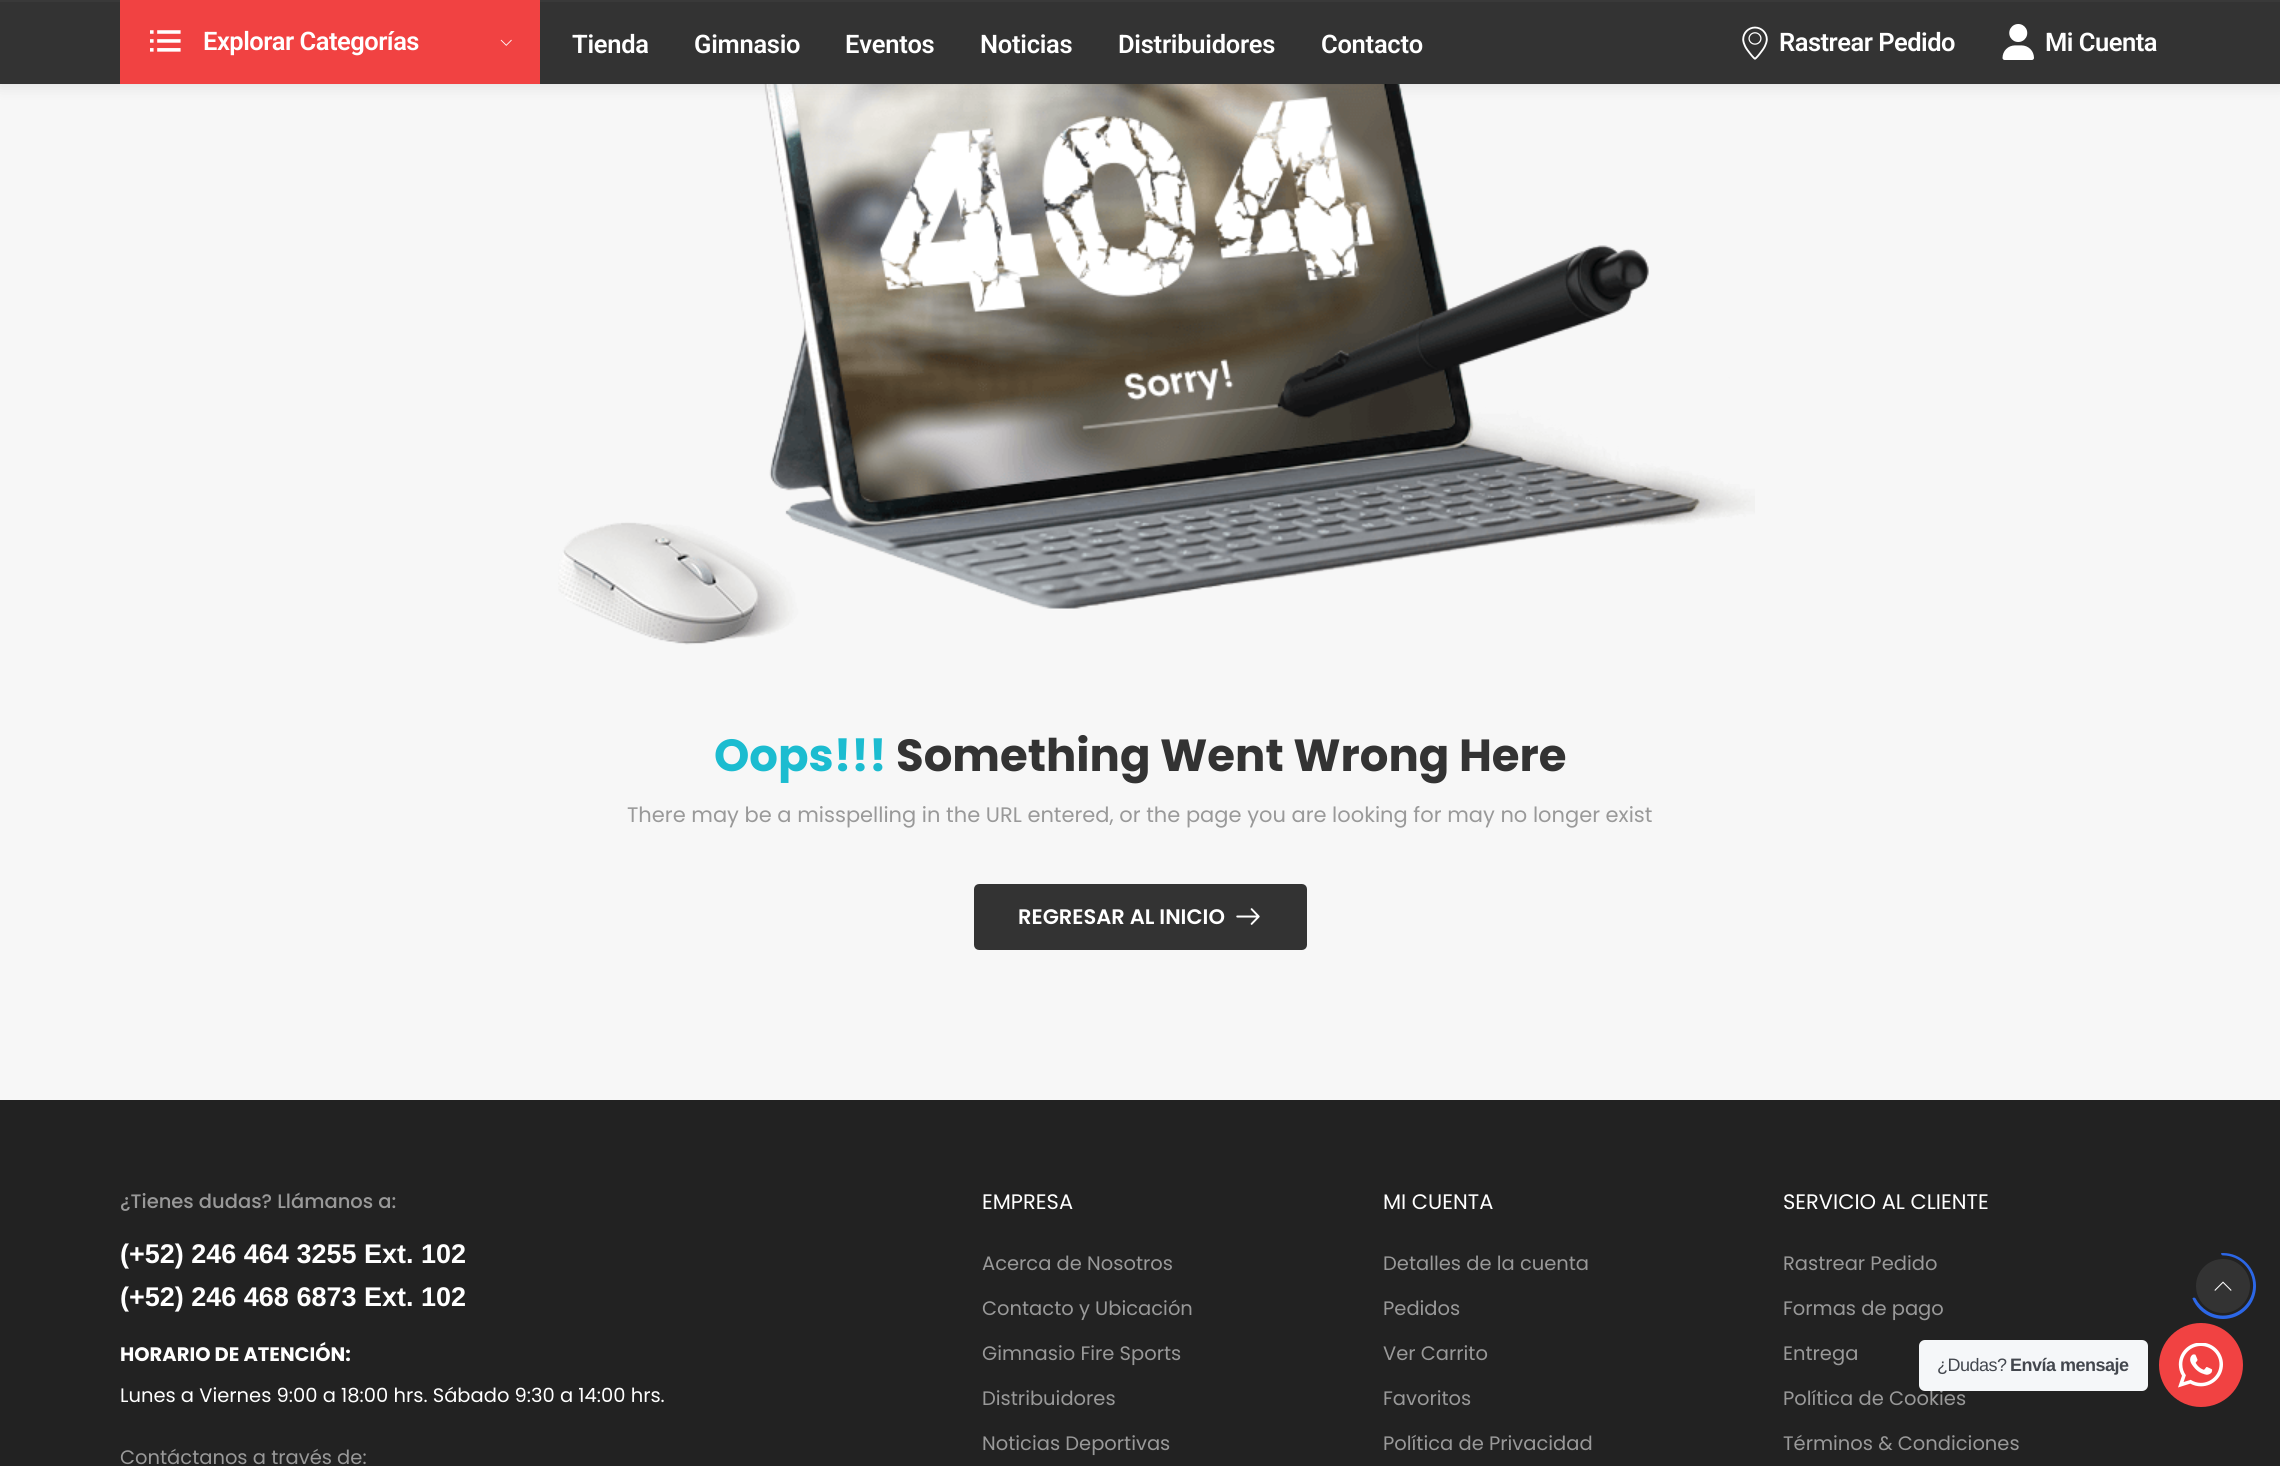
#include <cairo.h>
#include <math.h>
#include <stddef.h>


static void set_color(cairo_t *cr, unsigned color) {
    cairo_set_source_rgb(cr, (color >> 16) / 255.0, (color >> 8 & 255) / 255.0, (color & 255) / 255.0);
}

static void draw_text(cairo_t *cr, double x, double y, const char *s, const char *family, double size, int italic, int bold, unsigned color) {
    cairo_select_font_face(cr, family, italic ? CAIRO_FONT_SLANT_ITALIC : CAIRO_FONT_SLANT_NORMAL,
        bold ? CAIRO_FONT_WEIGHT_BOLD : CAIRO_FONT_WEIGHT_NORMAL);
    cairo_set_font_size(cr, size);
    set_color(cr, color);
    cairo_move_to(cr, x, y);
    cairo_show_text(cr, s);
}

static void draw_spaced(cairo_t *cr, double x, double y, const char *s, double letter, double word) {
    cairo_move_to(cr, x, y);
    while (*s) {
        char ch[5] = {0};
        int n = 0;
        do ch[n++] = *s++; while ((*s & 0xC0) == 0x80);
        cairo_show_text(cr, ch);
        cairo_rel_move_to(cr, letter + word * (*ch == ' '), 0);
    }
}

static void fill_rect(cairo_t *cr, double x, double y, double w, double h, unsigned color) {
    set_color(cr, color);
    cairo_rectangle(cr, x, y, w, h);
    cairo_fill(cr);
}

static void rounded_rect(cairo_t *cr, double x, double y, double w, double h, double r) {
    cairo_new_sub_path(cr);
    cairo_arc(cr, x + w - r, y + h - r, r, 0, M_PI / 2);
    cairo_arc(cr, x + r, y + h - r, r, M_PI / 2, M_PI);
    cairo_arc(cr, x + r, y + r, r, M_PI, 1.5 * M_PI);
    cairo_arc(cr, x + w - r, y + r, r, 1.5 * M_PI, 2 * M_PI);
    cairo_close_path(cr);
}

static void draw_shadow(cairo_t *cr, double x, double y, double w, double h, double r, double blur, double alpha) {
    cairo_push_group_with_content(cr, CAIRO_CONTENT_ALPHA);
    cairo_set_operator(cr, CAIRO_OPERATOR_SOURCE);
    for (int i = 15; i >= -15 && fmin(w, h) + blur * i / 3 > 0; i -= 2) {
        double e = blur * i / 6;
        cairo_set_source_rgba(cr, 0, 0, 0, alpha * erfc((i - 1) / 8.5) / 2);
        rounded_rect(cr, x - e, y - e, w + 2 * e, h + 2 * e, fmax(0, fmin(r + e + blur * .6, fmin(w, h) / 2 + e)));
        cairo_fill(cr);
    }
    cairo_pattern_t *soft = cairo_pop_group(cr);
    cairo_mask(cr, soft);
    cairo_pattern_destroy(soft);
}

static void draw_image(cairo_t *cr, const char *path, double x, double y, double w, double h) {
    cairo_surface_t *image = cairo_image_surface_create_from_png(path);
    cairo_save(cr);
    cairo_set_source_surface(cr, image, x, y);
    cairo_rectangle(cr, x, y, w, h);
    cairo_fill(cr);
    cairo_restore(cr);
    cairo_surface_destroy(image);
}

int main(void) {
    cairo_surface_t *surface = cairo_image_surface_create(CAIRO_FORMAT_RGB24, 2280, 1466);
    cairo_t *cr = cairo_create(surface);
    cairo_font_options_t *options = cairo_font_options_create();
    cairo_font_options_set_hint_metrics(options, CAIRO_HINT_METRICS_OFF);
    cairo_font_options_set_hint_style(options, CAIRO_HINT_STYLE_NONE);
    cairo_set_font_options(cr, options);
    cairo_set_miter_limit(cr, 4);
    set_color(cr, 0x222222);
    cairo_paint(cr);
    fill_rect(cr, 0, 84, 2280, 1016, 0xF7F7F7);
    draw_image(cr, "assets/img5.png", 558, 84, 1197, 561);
    set_color(cr, 0x000000);
    draw_shadow(cr, -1, -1, 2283, 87, 0, 7.5, 0.1);
    fill_rect(cr, 0, 2, 2280, 82, 0x333333);
    fill_rect(cr, 0, 0, 2280, 2, 0x393939);
    fill_rect(cr, 120, 0, 420, 84, 0xF14242);
    draw_image(cr, "assets/img1.png", 150, 30, 31, 22);
    cairo_select_font_face(cr, "Roboto SemiBold", CAIRO_FONT_SLANT_NORMAL, CAIRO_FONT_WEIGHT_NORMAL);
    cairo_set_font_size(cr, 25.5);
    set_color(cr, 0xFFFFFF);
    draw_spaced(cr, 203, 50, "Explorar Categorías", -0.5, 0);
    draw_image(cr, "assets/img2.png", 500, 39, 12, 7);
    draw_spaced(cr, 572, 53, "Tienda", -0.25, 0);
    draw_spaced(cr, 694, 53, "Gimnasio", -0.25, 0);
    draw_spaced(cr, 845, 53, "Eventos", -0.25, 0);
    draw_spaced(cr, 980, 53, "Noticias", -0.25, 0);
    draw_spaced(cr, 1118, 53, "Distribuidores", -0.25, 0);
    draw_spaced(cr, 1321, 53, "Contacto", -0.25, 0);
    draw_image(cr, "assets/img3.png", 1742, 26, 26, 34);
    draw_spaced(cr, 1779, 51, "Rastrear Pedido", -0.5, 0);
    draw_image(cr, "assets/img4.png", 2002, 24, 32, 36);
    draw_spaced(cr, 2045, 51, "Mi Cuenta", -0.5, 0);
    draw_text(cr, 714, 771, "Oops!!!", "Poppins", 45, 0, 1, 0x1CBCD0);
    draw_text(cr, 896, 771, "Something Went Wrong Here", "Poppins", 45, 0, 1, 0x333333);
    draw_text(cr, 627, 822, "There may be a misspelling in the URL entered, or the page you are looking for may no longer exist", "Poppins", 21, 0, 0, 0x999999);
    set_color(cr, 0x333333);
    rounded_rect(cr, 975.5, 885.5, 330, 63, 3.5);
    cairo_fill_preserve(cr);
    cairo_set_line_width(cr, 3);
    cairo_stroke(cr);
    draw_text(cr, 1018, 924, "REGRESAR AL INICIO", "Poppins SemiBold", 21, 0, 0, 0xFFFFFF);
    draw_image(cr, "assets/img6.png", 1236, 908, 24, 17);
    draw_text(cr, 120, 1208, "¿Tienes dudas? Llámanos a:", "Poppins Medium", 19.5, 0, 0, 0x999999);
    draw_text(cr, 120, 1263, "(+52) 246 464 3255 Ext. 102", "Liberation Sans", 27, 0, 1, 0xFFFFFF);
    draw_text(cr, 120, 1306, "(+52) 246 468 6873 Ext. 102", "Liberation Sans", 27, 0, 1, 0xFFFFFF);
    draw_text(cr, 120, 1361, "HORARIO DE ATENCIÓN:", "Poppins", 19.5, 0, 1, 0xFFFFFF);
    draw_text(cr, 120, 1402, "Lunes a Viernes 9:00 a 18:00 hrs. Sábado 9:30 a 14:00 hrs.", "Poppins", 19.5, 0, 0, 0xFFFFFF);
    draw_text(cr, 120, 1464, "Contáctanos a través de:", "Poppins", 19.5, 0, 0, 0x999999);
    draw_text(cr, 982, 1209, "EMPRESA", "Poppins", 21, 0, 0, 0xFFFFFF);
    draw_text(cr, 982, 1270, "Acerca de Nosotros", "Poppins", 19.5, 0, 0, 0x999999);
    draw_text(cr, 982, 1315, "Contacto y Ubicación", "Poppins", 19.5, 0, 0, 0x999999);
    draw_text(cr, 982, 1360, "Gimnasio Fire Sports", "Poppins", 19.5, 0, 0, 0x999999);
    draw_text(cr, 982, 1405, "Distribuidores", "Poppins", 19.5, 0, 0, 0x999999);
    draw_text(cr, 982, 1450, "Noticias Deportivas", "Poppins", 19.5, 0, 0, 0x999999);
    draw_text(cr, 1383, 1209, "MI CUENTA", "Poppins", 21, 0, 0, 0xFFFFFF);
    draw_text(cr, 1383, 1270, "Detalles de la cuenta", "Poppins", 19.5, 0, 0, 0x999999);
    draw_text(cr, 1383, 1315, "Pedidos", "Poppins", 19.5, 0, 0, 0x999999);
    draw_text(cr, 1383, 1360, "Ver Carrito", "Poppins", 19.5, 0, 0, 0x999999);
    draw_text(cr, 1383, 1405, "Favoritos", "Poppins", 19.5, 0, 0, 0x999999);
    draw_text(cr, 1383, 1450, "Política de Privacidad", "Poppins", 19.5, 0, 0, 0x999999);
    draw_text(cr, 1783, 1209, "SERVICIO AL CLIENTE", "Poppins", 21, 0, 0, 0xFFFFFF);
    draw_text(cr, 1783, 1270, "Rastrear Pedido", "Poppins", 19.5, 0, 0, 0x999999);
    draw_text(cr, 1783, 1315, "Formas de pago", "Poppins", 19.5, 0, 0, 0x999999);
    draw_text(cr, 1783, 1360, "Entrega", "Poppins", 19.5, 0, 0, 0x999999);
    draw_text(cr, 1783, 1405, "Política de Cookies", "Poppins", 19.5, 0, 0, 0x999999);
    draw_text(cr, 1783, 1450, "Términos & Condiciones", "Poppins", 19.5, 0, 0, 0x999999);
    cairo_save(cr);
    rounded_rect(cr, 2190, 1253, 66, 66, 33);
    cairo_clip(cr);
    cairo_new_path(cr);
    cairo_move_to(cr, 2223, 1253.5);
    cairo_curve_to(cr, 2240.5, 1253.5, 2255, 1268, 2255, 1285.5);
    cairo_curve_to(cr, 2255, 1303, 2240.5, 1317.5, 2223, 1317.5);
    cairo_curve_to(cr, 2210.5, 1317.5, 2199.5, 1310, 2194, 1299.5);
    set_color(cr, 0x2C67E7);
    cairo_set_line_width(cr, 3.8);
    cairo_set_line_cap(cr, CAIRO_LINE_CAP_ROUND);
    cairo_stroke(cr);
    cairo_restore(cr);
    set_color(cr, 0x333333);
    cairo_arc(cr, 2223, 1286, 25.5, 0, 2 * M_PI);
    cairo_fill_preserve(cr);
    cairo_stroke(cr);
    set_color(cr, 0xFFFFFF);
    cairo_new_path(cr);
    cairo_move_to(cr, 2223, 1281.5);
    cairo_line_to(cr, 2214.5, 1290);
    cairo_line_to(cr, 2215, 1291);
    cairo_line_to(cr, 2223, 1283);
    cairo_line_to(cr, 2231, 1291);
    cairo_line_to(cr, 2231.5, 1290);
    cairo_close_path(cr);
    cairo_fill(cr);
    set_color(cr, 0xF5F7F9);
    rounded_rect(cr, 1919, 1340, 229, 51, 6);
    cairo_fill(cr);
    cairo_select_font_face(cr, "Liberation Sans", CAIRO_FONT_SLANT_NORMAL, CAIRO_FONT_WEIGHT_NORMAL);
    cairo_set_font_size(cr, 18);
    set_color(cr, 0x43474E);
    draw_spaced(cr, 1937, 1371, "¿Dudas?", -0.5, 0);
    cairo_select_font_face(cr, "Liberation Sans", CAIRO_FONT_SLANT_NORMAL, CAIRO_FONT_WEIGHT_BOLD);
    draw_spaced(cr, 2010, 1371, "Envía mensaje", -0.5, 0);
    set_color(cr, 0xF14242);
    cairo_new_path(cr);
    cairo_arc(cr, 2201, 1365, 42, 0, 2 * M_PI);
    cairo_fill(cr);
    draw_image(cr, "assets/img7.png", 2178, 1343, 45, 45);
    cairo_surface_write_to_png(surface, "output.png");
    cairo_font_options_destroy(options);
    cairo_destroy(cr);
    cairo_surface_destroy(surface);
    return 0;
}
